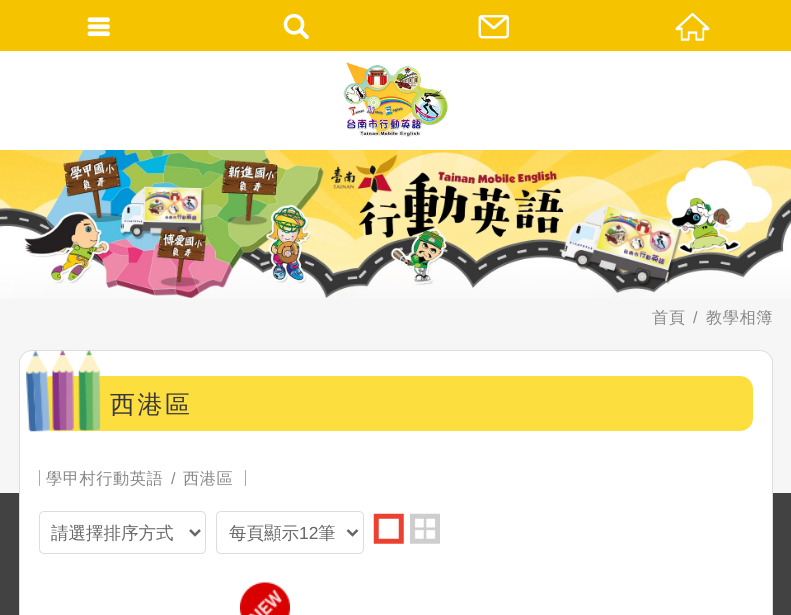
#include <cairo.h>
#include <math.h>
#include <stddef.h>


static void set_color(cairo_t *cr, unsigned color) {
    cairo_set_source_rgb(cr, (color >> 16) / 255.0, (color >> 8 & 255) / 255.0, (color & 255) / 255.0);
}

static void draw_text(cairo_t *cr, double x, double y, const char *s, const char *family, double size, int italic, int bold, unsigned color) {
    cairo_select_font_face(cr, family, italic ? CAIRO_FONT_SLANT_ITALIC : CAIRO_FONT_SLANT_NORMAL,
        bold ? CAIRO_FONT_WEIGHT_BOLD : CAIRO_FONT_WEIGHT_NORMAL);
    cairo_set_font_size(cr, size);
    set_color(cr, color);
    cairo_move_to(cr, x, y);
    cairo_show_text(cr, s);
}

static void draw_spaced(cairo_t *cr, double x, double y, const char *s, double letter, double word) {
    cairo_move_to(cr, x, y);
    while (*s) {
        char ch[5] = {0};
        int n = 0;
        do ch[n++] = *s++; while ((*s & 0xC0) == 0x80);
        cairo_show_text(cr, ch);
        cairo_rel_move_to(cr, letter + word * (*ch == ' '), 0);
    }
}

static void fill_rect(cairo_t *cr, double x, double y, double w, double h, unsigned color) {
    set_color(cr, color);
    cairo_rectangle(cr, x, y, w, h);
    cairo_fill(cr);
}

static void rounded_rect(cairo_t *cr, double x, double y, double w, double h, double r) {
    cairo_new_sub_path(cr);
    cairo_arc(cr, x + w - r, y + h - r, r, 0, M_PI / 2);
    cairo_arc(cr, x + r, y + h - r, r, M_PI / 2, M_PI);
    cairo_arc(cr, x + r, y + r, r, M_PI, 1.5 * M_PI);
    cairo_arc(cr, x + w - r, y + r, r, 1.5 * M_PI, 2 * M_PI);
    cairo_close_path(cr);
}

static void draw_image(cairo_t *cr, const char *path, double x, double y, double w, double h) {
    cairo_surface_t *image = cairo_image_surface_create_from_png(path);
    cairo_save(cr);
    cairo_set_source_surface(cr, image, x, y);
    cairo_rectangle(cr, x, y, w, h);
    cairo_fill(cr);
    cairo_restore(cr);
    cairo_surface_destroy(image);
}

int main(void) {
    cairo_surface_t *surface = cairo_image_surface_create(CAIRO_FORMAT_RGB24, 791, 615);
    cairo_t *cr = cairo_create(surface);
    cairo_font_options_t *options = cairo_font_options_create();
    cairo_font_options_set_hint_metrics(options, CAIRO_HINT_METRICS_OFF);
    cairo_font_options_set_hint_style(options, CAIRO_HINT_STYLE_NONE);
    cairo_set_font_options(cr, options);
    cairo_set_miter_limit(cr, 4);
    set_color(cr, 0xF6F6F6);
    cairo_paint(cr);
    fill_rect(cr, 0, 50, 791, 1, 0xF5C300);
    fill_rect(cr, 0, 0, 791, 50, 0xF5C300);
    draw_image(cr, "assets/img1.png", 87, 17, 23, 20);
    draw_image(cr, "assets/img2.png", 283, 13, 26, 27);
    draw_image(cr, "assets/img3.png", 478, 15, 31, 24);
    draw_image(cr, "assets/img4.png", 675, 13, 35, 28);
    fill_rect(cr, 0, 51, 791, 99, 0xFFFFFF);
    draw_image(cr, "assets/img5.png", 343, 62, 105, 75);
    fill_rect(cr, 0, 493, 791, 122, 0x424242);
    draw_image(cr, "assets/img6.png", 0, 150, 791, 149);
    cairo_select_font_face(cr, "WenQuanYi Zen Hei Medium", CAIRO_FONT_SLANT_NORMAL, CAIRO_FONT_WEIGHT_NORMAL);
    cairo_set_font_size(cr, 16.25);
    set_color(cr, 0x888888);
    draw_spaced(cr, 652, 323, "首頁", 0.5, 0);
    cairo_select_font_face(cr, "Liberation Sans", CAIRO_FONT_SLANT_NORMAL, CAIRO_FONT_WEIGHT_NORMAL);
    draw_spaced(cr, 693, 323, "/", 0.5, 0);
    cairo_select_font_face(cr, "WenQuanYi Zen Hei Medium", CAIRO_FONT_SLANT_NORMAL, CAIRO_FONT_WEIGHT_NORMAL);
    draw_spaced(cr, 706, 323, "教學相簿", 0.5, 0);
    set_color(cr, 0xFFFFFF);
    rounded_rect(cr, 19.5, 350.5, 753, 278, 12.5);
    cairo_fill_preserve(cr);
    set_color(cr, 0xDDDDDD);
    cairo_set_line_width(cr, 1);
    cairo_stroke(cr);
    set_color(cr, 0xFDDE3F);
    rounded_rect(cr, 39, 376, 714, 55, 13);
    cairo_fill(cr);
    draw_image(cr, "assets/img7.png", 26, 350, 75, 82);
    cairo_set_font_size(cr, 25);
    set_color(cr, 0x383838);
    draw_spaced(cr, 110, 413, "西港區", 2.5, 0);
    fill_rect(cr, 245, 470, 1, 16, 0xAAAAAA);
    fill_rect(cr, 39, 470, 1, 16, 0xAAAAAA);
    cairo_set_font_size(cr, 16.25);
    set_color(cr, 0x888888);
    draw_spaced(cr, 46, 484, "學甲村行動英語", 0.5, 0);
    cairo_select_font_face(cr, "Liberation Sans", CAIRO_FONT_SLANT_NORMAL, CAIRO_FONT_WEIGHT_NORMAL);
    draw_spaced(cr, 171, 484, "/", 0.5, 0);
    cairo_select_font_face(cr, "WenQuanYi Zen Hei Medium", CAIRO_FONT_SLANT_NORMAL, CAIRO_FONT_WEIGHT_NORMAL);
    draw_spaced(cr, 183, 484, "西港區", 0.5, 0);
    rounded_rect(cr, 39.5, 511.5, 166, 42, 4.5);
    set_color(cr, 0xDDDDDD);
    cairo_stroke(cr);
    cairo_new_path(cr);
    cairo_move_to(cr, 190, 530);
    cairo_line_to(cr, 195, 535);
    cairo_line_to(cr, 200, 530);
    set_color(cr, 0x666666);
    cairo_set_line_width(cr, 2.5);
    cairo_stroke(cr);
    draw_text(cr, 51, 539, "請選擇排序方式", "WenQuanYi Zen Hei Medium", 17.5, 0, 0, 0x666666);
    rounded_rect(cr, 216.5, 511.5, 147, 42, 4.5);
    set_color(cr, 0xDDDDDD);
    cairo_set_line_width(cr, 1);
    cairo_stroke(cr);
    cairo_new_path(cr);
    cairo_move_to(cr, 347.5, 530);
    cairo_line_to(cr, 352.5, 535);
    cairo_line_to(cr, 357.5, 530);
    set_color(cr, 0x666666);
    cairo_set_line_width(cr, 2.5);
    cairo_stroke(cr);
    draw_text(cr, 229, 539, "每頁顯示", "WenQuanYi Zen Hei Medium", 17.5, 0, 0, 0x666666);
    draw_text(cr, 299, 539, "12", "Liberation Sans", 17.5, 0, 0, 0x666666);
    draw_text(cr, 318, 539, "筆", "WenQuanYi Zen Hei Medium", 17.5, 0, 0, 0x666666);
    draw_image(cr, "assets/img8.png", 373, 513, 31, 31);
    draw_image(cr, "assets/img9.png", 410, 513, 30, 31);
    draw_image(cr, "assets/img10.png", 240, 582, 50, 33);
    cairo_surface_write_to_png(surface, "output.png");
    cairo_font_options_destroy(options);
    cairo_destroy(cr);
    cairo_surface_destroy(surface);
    return 0;
}
